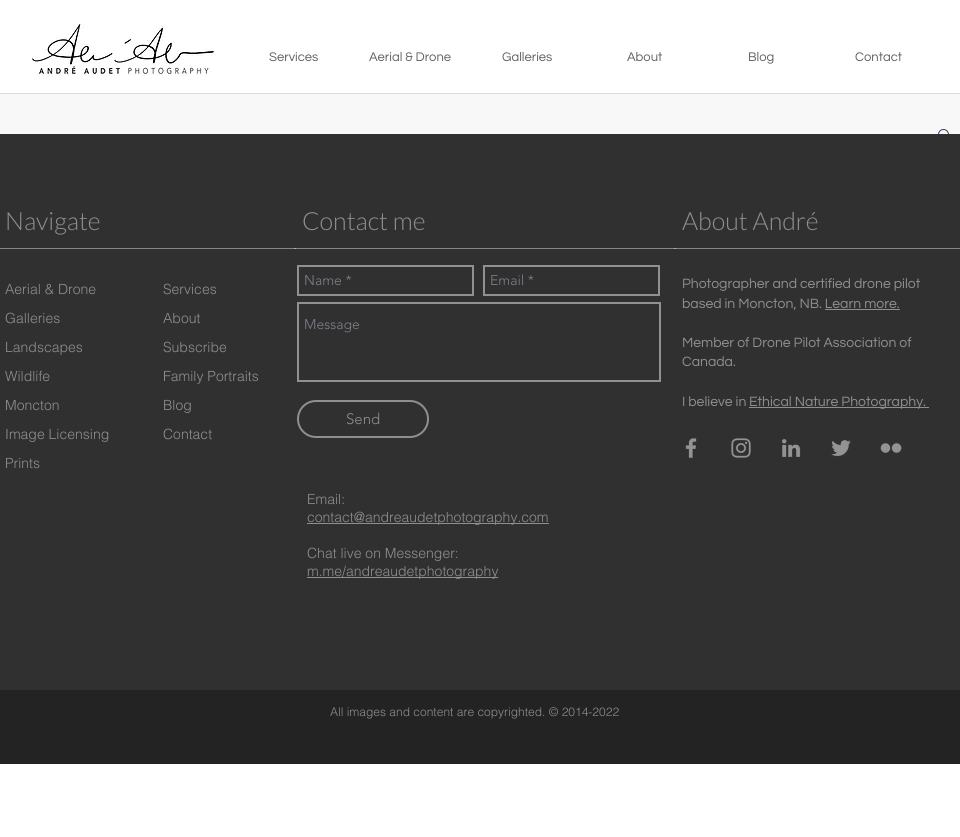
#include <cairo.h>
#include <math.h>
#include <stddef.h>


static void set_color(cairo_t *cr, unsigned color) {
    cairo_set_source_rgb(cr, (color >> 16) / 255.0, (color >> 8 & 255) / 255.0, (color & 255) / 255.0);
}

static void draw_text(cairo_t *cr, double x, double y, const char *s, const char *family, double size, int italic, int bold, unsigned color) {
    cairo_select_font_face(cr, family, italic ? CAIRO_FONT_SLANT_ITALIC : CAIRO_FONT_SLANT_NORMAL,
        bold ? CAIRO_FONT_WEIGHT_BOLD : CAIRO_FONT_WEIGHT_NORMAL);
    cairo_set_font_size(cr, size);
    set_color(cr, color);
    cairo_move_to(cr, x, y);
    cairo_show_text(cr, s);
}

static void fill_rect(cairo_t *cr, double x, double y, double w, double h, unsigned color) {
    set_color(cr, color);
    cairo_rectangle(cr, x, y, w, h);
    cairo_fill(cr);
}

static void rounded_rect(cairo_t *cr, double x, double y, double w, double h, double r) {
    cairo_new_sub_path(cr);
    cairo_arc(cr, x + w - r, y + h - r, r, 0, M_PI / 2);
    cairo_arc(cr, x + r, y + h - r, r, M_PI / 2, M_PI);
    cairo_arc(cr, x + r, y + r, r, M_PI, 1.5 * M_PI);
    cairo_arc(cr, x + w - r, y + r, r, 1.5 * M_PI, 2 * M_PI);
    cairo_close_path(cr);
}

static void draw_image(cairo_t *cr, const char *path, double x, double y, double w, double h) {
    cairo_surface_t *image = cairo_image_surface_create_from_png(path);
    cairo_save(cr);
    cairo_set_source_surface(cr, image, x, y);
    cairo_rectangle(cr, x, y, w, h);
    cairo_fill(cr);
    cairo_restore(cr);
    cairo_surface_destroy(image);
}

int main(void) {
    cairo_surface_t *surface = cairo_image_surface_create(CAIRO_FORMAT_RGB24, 960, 837);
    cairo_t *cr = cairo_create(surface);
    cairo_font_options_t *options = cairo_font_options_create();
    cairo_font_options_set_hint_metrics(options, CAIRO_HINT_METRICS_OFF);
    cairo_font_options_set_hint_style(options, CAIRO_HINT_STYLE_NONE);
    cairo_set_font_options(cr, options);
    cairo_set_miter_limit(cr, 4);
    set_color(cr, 0xFFFFFF);
    cairo_paint(cr);
    draw_image(cr, "assets/img1.png", 32, 24, 184, 52);
    draw_text(cr, 269, 61, "Services", "Questrial", 13, 0, 0, 0x606060);
    draw_text(cr, 369, 61, "Aerial & Drone", "Questrial", 13, 0, 0, 0x606060);
    draw_text(cr, 502, 61, "Galleries", "Questrial", 13, 0, 0, 0x606060);
    draw_text(cr, 627, 61, "About", "Questrial", 13, 0, 0, 0x606060);
    draw_text(cr, 748, 61, "Blog", "Questrial", 13, 0, 0, 0x606060);
    draw_text(cr, 855, 61, "Contact", "Questrial", 13, 0, 0, 0x606060);
    fill_rect(cr, 0, 93, 960, 1, 0xDBDBDB);
    fill_rect(cr, 0, 94, 960, 40, 0xF8F8F8);
    draw_image(cr, "assets/img2.png", 938, 129, 11, 5);
    fill_rect(cr, 0, 134, 960, 556, 0x303030);
    fill_rect(cr, 0, 248, 960, 1, 0x868686);
    fill_rect(cr, 674, 248, 2, 1, 0xB1B1B1);
    draw_text(cr, 5, 230, "Navigate", "Lato Light", 25, 0, 0, 0x8F8F8F);
    fill_rect(cr, 294, 248, 2, 1, 0xB1B1B1);
    draw_text(cr, 5, 294, "Aerial & Drone", "helvetica Light", 14, 0, 0, 0x8F8F8F);
    draw_text(cr, 5, 323, "Galleries", "helvetica Light", 14, 0, 0, 0x8F8F8F);
    draw_text(cr, 5, 352, "Landscapes", "helvetica Light", 14, 0, 0, 0x8F8F8F);
    draw_text(cr, 5, 381, "Wildlife", "helvetica Light", 14, 0, 0, 0x8F8F8F);
    draw_text(cr, 5, 410, "Moncton", "helvetica Light", 14, 0, 0, 0x8F8F8F);
    draw_text(cr, 5, 439, "Image Licensing", "helvetica Light", 14, 0, 0, 0x8F8F8F);
    draw_text(cr, 5, 468, "Prints", "helvetica Light", 14, 0, 0, 0x8F8F8F);
    draw_text(cr, 163, 294, "Services", "helvetica Light", 14, 0, 0, 0x8F8F8F);
    draw_text(cr, 163, 323, "About", "helvetica Light", 14, 0, 0, 0x8F8F8F);
    draw_text(cr, 163, 352, "Subscribe", "helvetica Light", 14, 0, 0, 0x8F8F8F);
    draw_text(cr, 163, 381, "Family Portraits", "helvetica Light", 14, 0, 0, 0x8F8F8F);
    draw_text(cr, 163, 410, "Blog", "helvetica Light", 14, 0, 0, 0x8F8F8F);
    draw_text(cr, 163, 439, "Contact", "helvetica Light", 14, 0, 0, 0x8F8F8F);
    draw_text(cr, 302, 230, "Contact me", "Lato Light", 25, 0, 0, 0x8F8F8F);
    cairo_rectangle(cr, 298, 266, 175, 29);
    set_color(cr, 0x919191);
    cairo_stroke(cr);
    draw_text(cr, 304, 285, "Name *", "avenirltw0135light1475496 Light", 14, 0, 0, 0x7F808A);
    cairo_rectangle(cr, 484, 266, 175, 29);
    set_color(cr, 0x919191);
    cairo_stroke(cr);
    draw_text(cr, 490, 285, "Email *", "avenirltw0135light1475496 Light", 14, 0, 0, 0x7F808A);
    cairo_rectangle(cr, 298, 303, 362, 78);
    set_color(cr, 0x919191);
    cairo_stroke(cr);
    draw_text(cr, 304, 329, "Message", "avenirltw0135light1475496 Light", 14, 0, 0, 0x7F808A);
    rounded_rect(cr, 298, 401, 130, 36, 18);
    set_color(cr, 0x8F8F8F);
    cairo_stroke(cr);
    draw_text(cr, 346, 424, "Send", "avenirltw0135light1475496 Light", 15, 0, 0, 0x8F8F8F);
    draw_text(cr, 307, 504, "Email:", "helvetica Light", 14, 0, 0, 0x8F8F8F);
    fill_rect(cr, 307, 523, 242, 1, 0x8F8F8F);
    draw_text(cr, 307, 522, "contact@andreaudetphotography.com", "helvetica Light", 14, 0, 0, 0x8F8F8F);
    draw_text(cr, 307, 558, "Chat live on Messenger:", "helvetica Light", 14, 0, 0, 0x8F8F8F);
    fill_rect(cr, 307, 577, 191, 1, 0x8F8F8F);
    draw_text(cr, 307, 576, "m.me/andreaudetphotography", "helvetica Light", 14, 0, 0, 0x8F8F8F);
    draw_text(cr, 682, 230, "About André", "Lato Light", 25, 0, 0, 0x8F8F8F);
    draw_text(cr, 682, 288, "Photographer and certified drone pilot", "Questrial", 14, 0, 0, 0x8F8F8F);
    draw_text(cr, 682, 308, "based in Moncton, NB. Learn more.", "Questrial", 14, 0, 0, 0x8F8F8F);
    fill_rect(cr, 825, 309, 75, 1, 0x8F8F8F);
    draw_text(cr, 682, 347, "Member of Drone Pilot Association of", "Questrial", 14, 0, 0, 0x8F8F8F);
    draw_text(cr, 682, 366, "Canada.", "Questrial", 14, 0, 0, 0x8F8F8F);
    draw_text(cr, 682, 406, "I believe in", "Questrial", 14, 0, 0, 0x8F8F8F);
    fill_rect(cr, 749, 407, 180, 1, 0x8F8F8F);
    draw_text(cr, 749, 406, "Ethical Nature Photography.", "Questrial", 14, 0, 0, 0x8F8F8F);
    draw_image(cr, "assets/img3.png", 685, 438, 12, 20);
    draw_image(cr, "assets/img4.png", 731, 438, 20, 20);
    draw_image(cr, "assets/img5.png", 782, 439, 19, 18);
    draw_image(cr, "assets/img6.png", 831, 440, 20, 17);
    draw_image(cr, "assets/img7.png", 880, 443, 22, 10);
    fill_rect(cr, 0, 690, 960, 74, 0x242323);
    draw_text(cr, 330, 716, "All images and content are copyrighted. © 2014-2022", "helvetica Light", 12, 0, 0, 0x8F8F8F);
    cairo_surface_write_to_png(surface, "output.png");
    cairo_font_options_destroy(options);
    cairo_destroy(cr);
    cairo_surface_destroy(surface);
    return 0;
}
